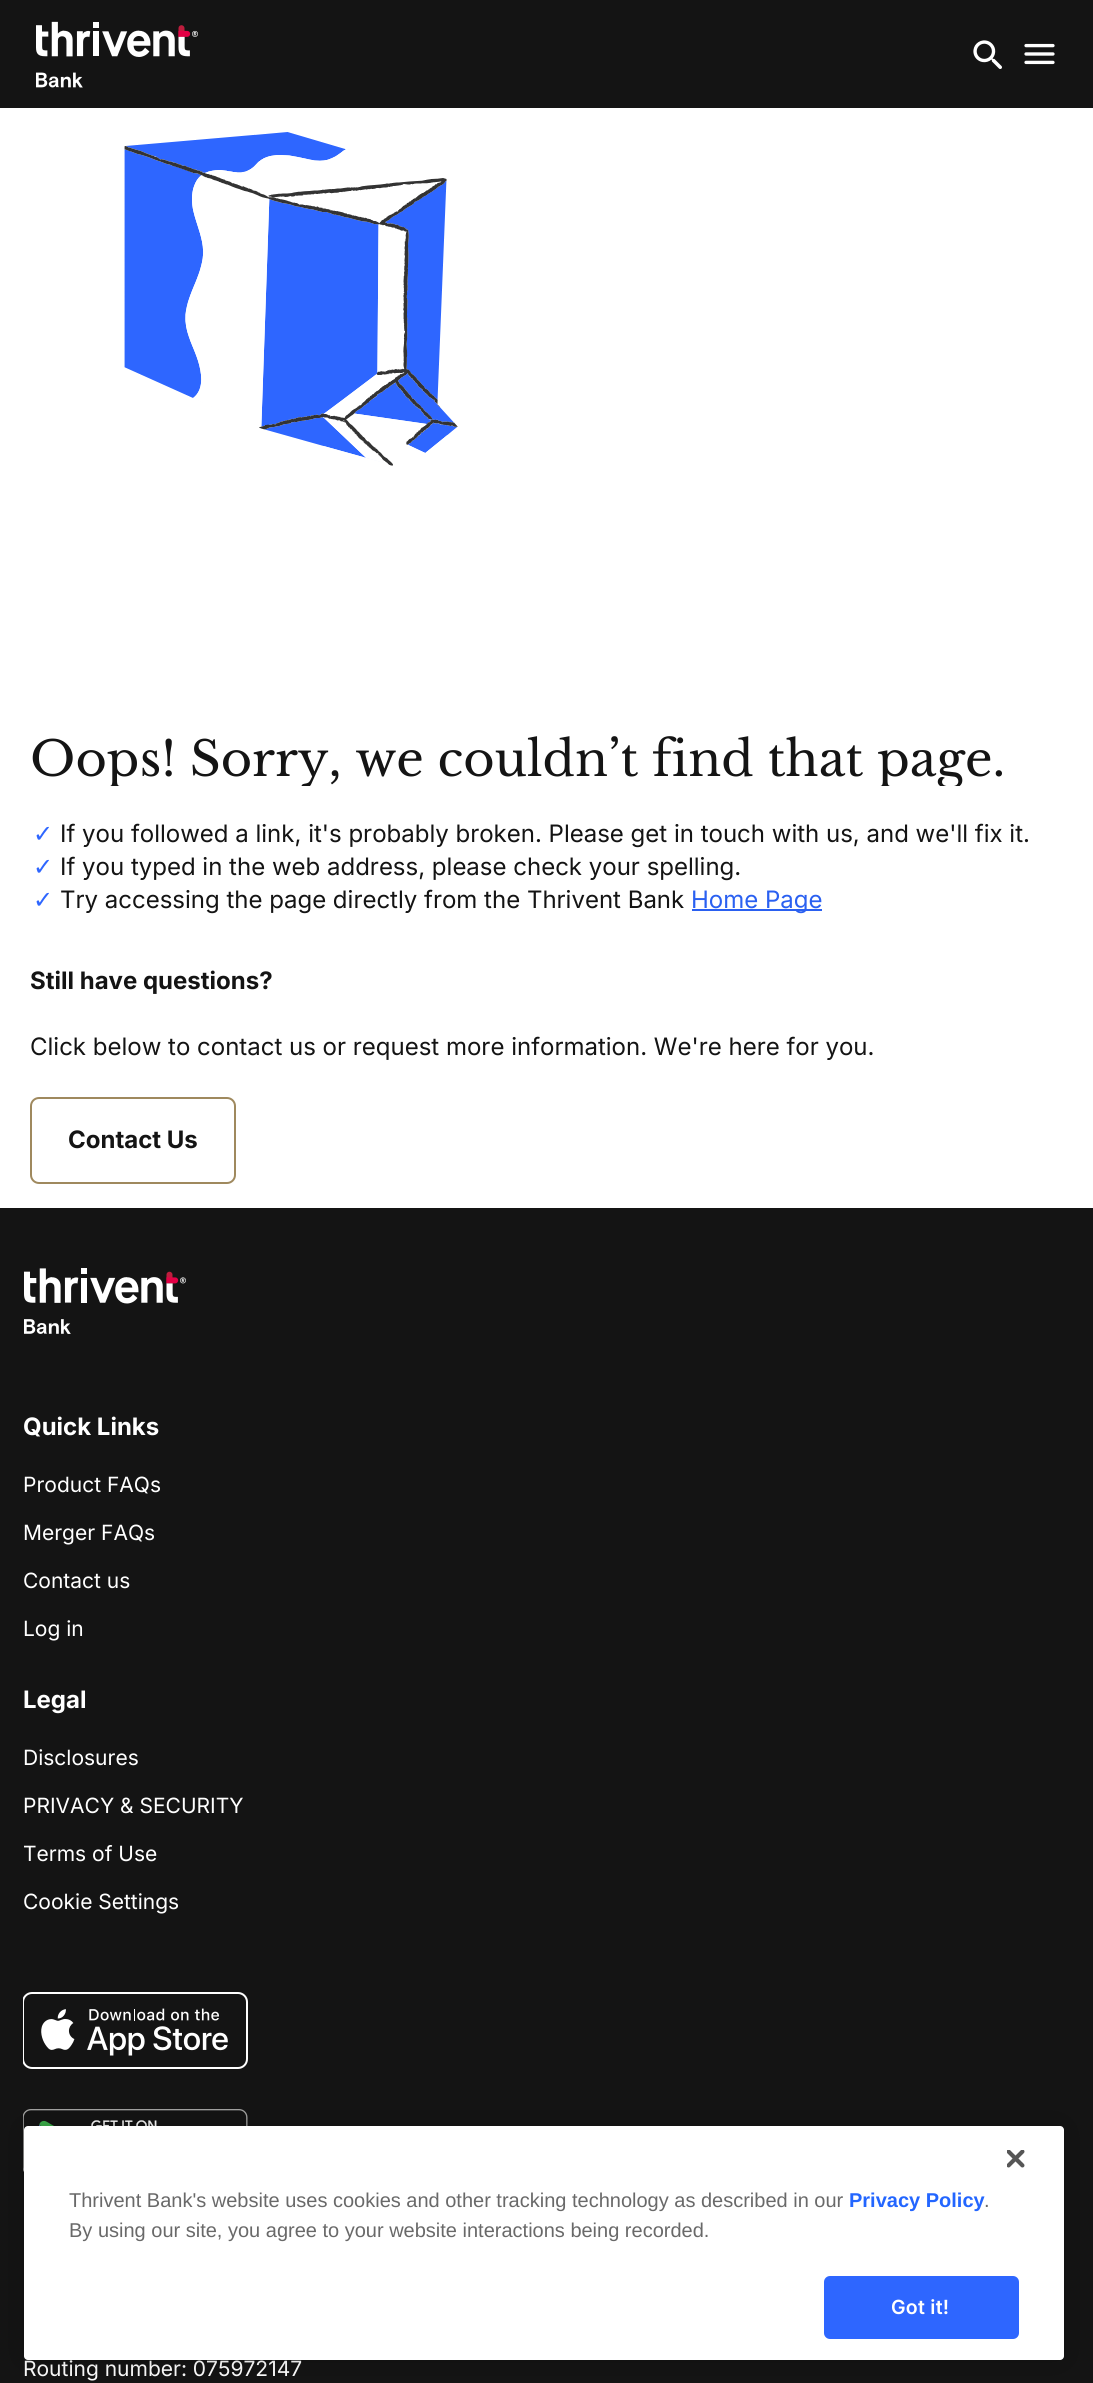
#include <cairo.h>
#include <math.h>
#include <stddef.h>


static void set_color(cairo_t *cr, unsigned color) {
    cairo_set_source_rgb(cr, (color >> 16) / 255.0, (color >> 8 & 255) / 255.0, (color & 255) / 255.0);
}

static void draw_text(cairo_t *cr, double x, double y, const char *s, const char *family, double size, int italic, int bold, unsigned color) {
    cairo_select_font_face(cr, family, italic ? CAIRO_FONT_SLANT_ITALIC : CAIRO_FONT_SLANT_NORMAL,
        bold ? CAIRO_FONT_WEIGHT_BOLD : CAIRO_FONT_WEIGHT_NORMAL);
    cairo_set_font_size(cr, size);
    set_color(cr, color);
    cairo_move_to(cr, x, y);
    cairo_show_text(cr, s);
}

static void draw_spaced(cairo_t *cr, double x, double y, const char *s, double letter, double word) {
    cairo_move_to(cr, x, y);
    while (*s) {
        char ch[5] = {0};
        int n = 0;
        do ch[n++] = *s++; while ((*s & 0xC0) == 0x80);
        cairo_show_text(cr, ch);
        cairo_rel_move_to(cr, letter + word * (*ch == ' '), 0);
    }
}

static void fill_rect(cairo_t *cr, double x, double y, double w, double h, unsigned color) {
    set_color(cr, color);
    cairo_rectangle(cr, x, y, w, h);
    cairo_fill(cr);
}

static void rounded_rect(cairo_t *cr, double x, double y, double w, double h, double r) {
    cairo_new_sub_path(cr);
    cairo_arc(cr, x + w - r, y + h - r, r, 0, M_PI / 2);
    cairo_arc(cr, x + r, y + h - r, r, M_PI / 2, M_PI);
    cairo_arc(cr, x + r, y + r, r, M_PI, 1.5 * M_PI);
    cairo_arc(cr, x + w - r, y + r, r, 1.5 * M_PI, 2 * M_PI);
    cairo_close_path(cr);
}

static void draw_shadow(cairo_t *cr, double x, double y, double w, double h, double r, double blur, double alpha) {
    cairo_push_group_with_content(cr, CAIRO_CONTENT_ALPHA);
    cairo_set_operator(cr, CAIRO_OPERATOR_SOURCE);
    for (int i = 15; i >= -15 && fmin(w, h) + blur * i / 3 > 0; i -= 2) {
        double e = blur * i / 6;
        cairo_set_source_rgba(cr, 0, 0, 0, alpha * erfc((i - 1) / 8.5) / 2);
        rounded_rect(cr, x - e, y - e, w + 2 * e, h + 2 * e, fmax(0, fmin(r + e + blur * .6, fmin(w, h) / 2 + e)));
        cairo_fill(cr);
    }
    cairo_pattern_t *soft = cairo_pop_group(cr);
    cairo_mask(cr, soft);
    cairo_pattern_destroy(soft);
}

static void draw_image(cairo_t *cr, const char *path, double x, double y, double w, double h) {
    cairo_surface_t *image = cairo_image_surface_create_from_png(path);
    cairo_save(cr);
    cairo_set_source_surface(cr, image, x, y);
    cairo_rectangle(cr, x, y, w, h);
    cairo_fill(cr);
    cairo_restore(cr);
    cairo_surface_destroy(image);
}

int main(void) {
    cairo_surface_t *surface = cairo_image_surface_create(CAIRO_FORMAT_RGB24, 1093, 2383);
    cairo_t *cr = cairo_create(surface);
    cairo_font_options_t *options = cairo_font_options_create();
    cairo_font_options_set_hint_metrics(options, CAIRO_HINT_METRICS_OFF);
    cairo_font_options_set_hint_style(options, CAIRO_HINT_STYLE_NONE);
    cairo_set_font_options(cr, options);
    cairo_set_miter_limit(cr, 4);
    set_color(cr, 0xFFFFFF);
    cairo_paint(cr);
    fill_rect(cr, 0, 0, 1093, 108, 0x141414);
    draw_image(cr, "assets/img1.png", 36, 21, 162, 67);
    draw_image(cr, "assets/img2.png", 973, 40, 29, 29);
    draw_image(cr, "assets/img3.png", 1024, 43, 31, 22);
    draw_image(cr, "assets/img4.png", 124, 132, 334, 334);
    cairo_save(cr);
    cairo_rectangle(cr, 30, 732, 1034, 54);
    cairo_clip(cr);
    draw_text(cr, 30, 776, "Oops! Sorry, we couldn’t find that page.", "Libre Baskerville", 48, 0, 0, 0x141414);
    cairo_restore(cr);
    draw_text(cr, 33, 842, "✓", "DejaVu Sans", 24, 0, 0, 0x2E66FF);
    draw_text(cr, 60, 842, "If you followed a link, it's probably broken. Please get in touch with us, and we'll fix it.", "Inter", 24, 0, 0, 0x141414);
    draw_text(cr, 33, 875, "✓", "DejaVu Sans", 24, 0, 0, 0x2E66FF);
    draw_text(cr, 60, 875, "If you typed in the web address, please check your spelling.", "Inter", 24, 0, 0, 0x141414);
    draw_text(cr, 33, 908, "✓", "DejaVu Sans", 24, 0, 0, 0x2E66FF);
    draw_text(cr, 60, 908, "Try accessing the page directly from the Thrivent Bank", "Inter", 24, 0, 0, 0x141414);
    fill_rect(cr, 692, 909, 130, 2, 0x2A60F1);
    draw_text(cr, 691, 908, "Home Page", "Inter", 24, 0, 0, 0x2A60F1);
    draw_text(cr, 30, 989, "Still have questions?", "Inter", 24, 0, 1, 0x141414);
    draw_text(cr, 30, 1055, "Click below to contact us or request more information. We're here for you.", "Inter", 24, 0, 0, 0x141414);
    rounded_rect(cr, 31, 1098, 204, 85, 8);
    set_color(cr, 0x9F895E);
    cairo_stroke(cr);
    draw_text(cr, 68, 1148, "Contact Us", "Inter", 24, 0, 1, 0x141414);
    fill_rect(cr, 0, 1208, 1093, 1175, 0x141414);
    draw_image(cr, "assets/img5.png", 24, 1268, 162, 66);
    draw_text(cr, 23, 1435, "Quick Links", "Inter", 24, 0, 1, 0xFFFFFF);
    draw_text(cr, 23, 1492, "Product FAQs", "Inter", 21, 0, 0, 0xFFFFFF);
    draw_text(cr, 23, 1540, "Merger FAQs", "Inter", 21, 0, 0, 0xFFFFFF);
    draw_text(cr, 23, 1588, "Contact us", "Inter", 21, 0, 0, 0xFFFFFF);
    draw_text(cr, 23, 1636, "Log in", "Inter", 21, 0, 0, 0xFFFFFF);
    draw_text(cr, 23, 1708, "Legal", "Inter", 24, 0, 1, 0xFFFFFF);
    draw_text(cr, 23, 1765, "Disclosures", "Inter", 21, 0, 0, 0xFFFFFF);
    draw_text(cr, 23, 1813, "PRIVACY & SECURITY", "Inter", 21, 0, 0, 0xFFFFFF);
    draw_text(cr, 23, 1861, "Terms of Use", "Inter", 21, 0, 0, 0xFFFFFF);
    draw_text(cr, 23, 1909, "Cookie Settings", "Inter", 21, 0, 0, 0xFFFFFF);
    draw_image(cr, "assets/img6.png", 23, 1992, 225, 77);
    draw_image(cr, "assets/img7.png", 23, 2109, 225, 63);
    draw_text(cr, 23, 2376, "Routing number: 075972147", "Inter", 21, 0, 0, 0xFFFFFF);
    set_color(cr, 0x000000);
    draw_shadow(cr, 24, 2126, 1040, 234, 4, 13.5, 0.2);
    set_color(cr, 0xFFFFFF);
    rounded_rect(cr, 24, 2126, 1040, 234, 4);
    cairo_fill(cr);
    draw_image(cr, "assets/img8.png", 1007, 2150, 18, 18);
    draw_text(cr, 69, 2207, "Thrivent Bank's website uses cookies and other tracking technology as described in our", "Liberation Sans", 20, 0, 0, 0x696969);
    draw_text(cr, 849, 2207, "Privacy Policy", "Liberation Sans", 20, 0, 1, 0x2366FF);
    draw_text(cr, 984, 2207, ".", "Liberation Sans", 20, 0, 0, 0x696969);
    draw_text(cr, 69, 2237, "By using our site, you agree to your website interactions being recorded.", "Liberation Sans", 20, 0, 0, 0x696969);
    set_color(cr, 0x2E66FF);
    rounded_rect(cr, 825, 2277, 193, 61, 5);
    cairo_fill_preserve(cr);
    cairo_stroke(cr);
    cairo_select_font_face(cr, "Inter SemiBold", CAIRO_FONT_SLANT_NORMAL, CAIRO_FONT_WEIGHT_NORMAL);
    cairo_set_font_size(cr, 19.5);
    set_color(cr, 0xFFFFFF);
    draw_spaced(cr, 891, 2314, "Got it!", 0.25, 0);
    cairo_surface_write_to_png(surface, "output.png");
    cairo_font_options_destroy(options);
    cairo_destroy(cr);
    cairo_surface_destroy(surface);
    return 0;
}
